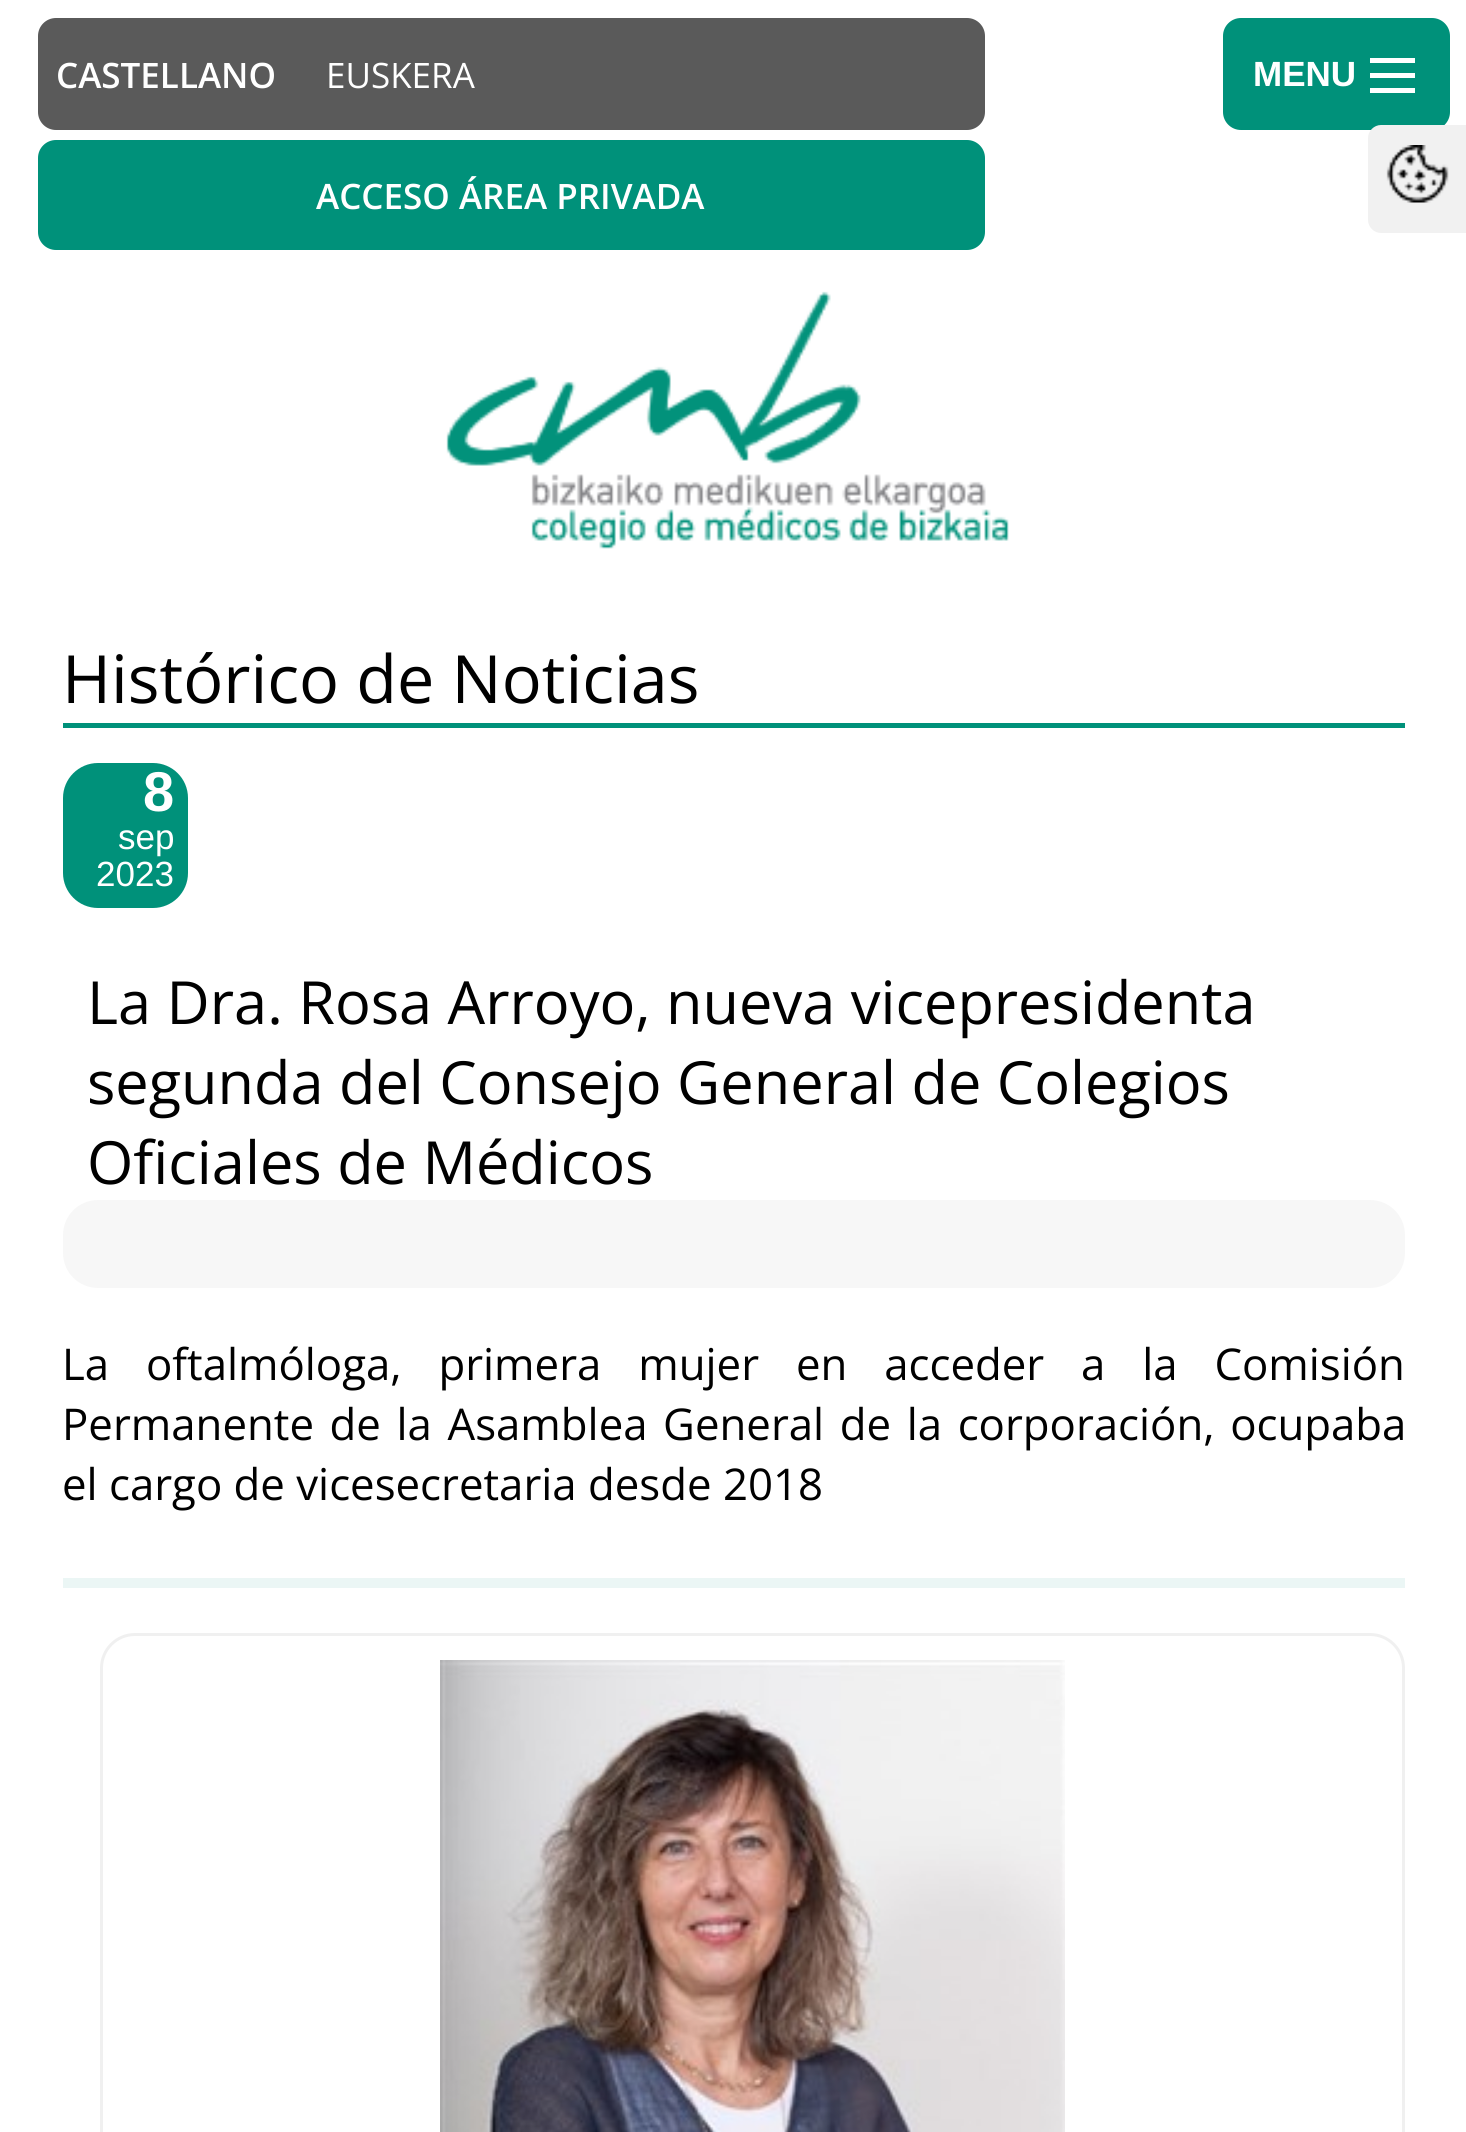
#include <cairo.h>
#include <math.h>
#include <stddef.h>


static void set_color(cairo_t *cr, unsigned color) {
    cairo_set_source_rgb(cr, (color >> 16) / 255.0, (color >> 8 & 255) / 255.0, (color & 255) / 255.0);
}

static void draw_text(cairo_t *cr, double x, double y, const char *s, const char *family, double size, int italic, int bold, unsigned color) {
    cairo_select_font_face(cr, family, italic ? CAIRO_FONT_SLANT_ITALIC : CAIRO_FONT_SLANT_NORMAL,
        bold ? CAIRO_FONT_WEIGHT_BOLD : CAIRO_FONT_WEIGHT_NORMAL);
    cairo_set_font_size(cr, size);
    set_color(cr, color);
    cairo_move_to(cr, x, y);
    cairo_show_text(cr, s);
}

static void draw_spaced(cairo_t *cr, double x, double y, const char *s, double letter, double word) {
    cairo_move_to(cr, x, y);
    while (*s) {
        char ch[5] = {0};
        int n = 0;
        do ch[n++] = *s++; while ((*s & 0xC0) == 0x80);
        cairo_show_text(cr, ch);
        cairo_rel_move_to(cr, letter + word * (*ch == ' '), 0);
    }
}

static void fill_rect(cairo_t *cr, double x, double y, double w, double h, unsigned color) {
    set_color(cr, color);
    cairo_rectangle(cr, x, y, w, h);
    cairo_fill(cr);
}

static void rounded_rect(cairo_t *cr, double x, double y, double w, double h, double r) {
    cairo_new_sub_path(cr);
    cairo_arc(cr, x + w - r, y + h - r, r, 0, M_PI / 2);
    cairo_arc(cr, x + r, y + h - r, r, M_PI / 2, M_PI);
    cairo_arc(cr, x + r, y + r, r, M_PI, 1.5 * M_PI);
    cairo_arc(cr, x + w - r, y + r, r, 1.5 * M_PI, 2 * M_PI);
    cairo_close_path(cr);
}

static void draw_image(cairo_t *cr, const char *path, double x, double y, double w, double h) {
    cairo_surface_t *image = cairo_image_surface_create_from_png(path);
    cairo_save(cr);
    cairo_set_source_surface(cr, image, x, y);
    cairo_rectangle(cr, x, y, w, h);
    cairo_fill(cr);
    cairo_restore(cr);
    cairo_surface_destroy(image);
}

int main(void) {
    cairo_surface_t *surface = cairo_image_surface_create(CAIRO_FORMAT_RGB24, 1466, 2132);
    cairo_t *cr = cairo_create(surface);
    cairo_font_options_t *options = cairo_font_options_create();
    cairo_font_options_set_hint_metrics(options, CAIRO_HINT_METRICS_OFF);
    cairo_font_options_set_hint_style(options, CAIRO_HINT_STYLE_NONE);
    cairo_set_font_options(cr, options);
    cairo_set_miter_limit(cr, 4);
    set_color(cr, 0xFFFFFF);
    cairo_paint(cr);
    set_color(cr, 0x00917A);
    rounded_rect(cr, 1223, 18, 227, 112, 18);
    cairo_fill(cr);
    fill_rect(cr, 1370, 88, 45, 5, 0xFFFFFF);
    fill_rect(cr, 1370, 73, 45, 5, 0xFFFFFF);
    fill_rect(cr, 1370, 58, 45, 5, 0xFFFFFF);
    draw_text(cr, 1253, 86, "MENU", "Liberation Sans", 35, 0, 1, 0xFFFFFF);
    fill_rect(cr, 63, 723, 1342, 5, 0x00917A);
    draw_text(cr, 62, 703, "Histórico de Noticias", "Open Sans", 66.5, 0, 0, 0x000000);
    set_color(cr, 0x00917A);
    rounded_rect(cr, 63, 763, 125, 145, 35);
    cairo_fill(cr);
    draw_text(cr, 143, 811, "8", "Liberation Sans", 56, 0, 1, 0xFFFFFF);
    draw_text(cr, 118, 849, "sep", "Liberation Sans", 35, 0, 0, 0xFFFFFF);
    draw_text(cr, 96, 886, "2023", "Liberation Sans", 35, 0, 0, 0xFFFFFF);
    draw_text(cr, 87, 1024, "La Dra. Rosa Arroyo, nueva vicepresidenta", "Open Sans", 59.5, 0, 0, 0x000000);
    draw_text(cr, 87, 1104, "segunda del Consejo General de Colegios", "Open Sans", 59.5, 0, 0, 0x000000);
    draw_text(cr, 87, 1184, "Oficiales de Médicos", "Open Sans", 59.5, 0, 0, 0x000000);
    set_color(cr, 0xF7F7F7);
    rounded_rect(cr, 63, 1200, 1342, 88, 35);
    cairo_fill(cr);
    fill_rect(cr, 63, 1578, 1342, 10, 0xEBF6F5);
    cairo_set_font_size(cr, 43.75);
    set_color(cr, 0x000000);
    draw_spaced(cr, 62, 1380, "La oftalmóloga, primera mujer en acceder a la Comisión", 0, 25.5);
    draw_spaced(cr, 62, 1440, "Permanente de la Asamblea General de la corporación, ocupaba", 0, 4.25);
    draw_text(cr, 62, 1500, "el cargo de vicesecretaria desde 2018", "Open Sans", 43.75, 0, 0, 0x000000);
    rounded_rect(cr, 101.5, 1634.5, 1302, 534, 33.5);
    set_color(cr, 0xF0F0F0);
    cairo_set_line_width(cr, 3);
    cairo_stroke(cr);
    draw_image(cr, "assets/img1.png", 440, 1660, 625, 472);
    set_color(cr, 0x5A5A5A);
    rounded_rect(cr, 38, 18, 947, 112, 18);
    cairo_fill(cr);
    draw_text(cr, 56, 88, "CASTELLANO", "Open Sans SemiBold", 35, 0, 0, 0xFFFFFF);
    draw_text(cr, 326, 88, "EUSKERA", "Open Sans", 35, 0, 0, 0xFFFFFF);
    set_color(cr, 0x00917A);
    rounded_rect(cr, 38, 140, 947, 110, 18);
    cairo_fill(cr);
    draw_text(cr, 316, 209, "ACCESO ÁREA PRIVADA", "Open Sans SemiBold", 35, 0, 0, 0xFFFFFF);
    draw_image(cr, "assets/img2.png", 446, 291, 563, 258);
    set_color(cr, 0xF1F1F1);
    cairo_new_path(cr);
    cairo_move_to(cr, 1381, 125);
    cairo_line_to(cr, 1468, 125);
    cairo_line_to(cr, 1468, 233);
    cairo_line_to(cr, 1381, 233);
    cairo_curve_to(cr, 1374, 233, 1368, 227, 1368, 220);
    cairo_line_to(cr, 1368, 138);
    cairo_curve_to(cr, 1368, 131, 1374, 125, 1381, 125);
    cairo_close_path(cr);
    cairo_fill(cr);
    draw_image(cr, "assets/img3.png", 1386, 145, 63, 58);
    cairo_surface_write_to_png(surface, "output.png");
    cairo_font_options_destroy(options);
    cairo_destroy(cr);
    cairo_surface_destroy(surface);
    return 0;
}
